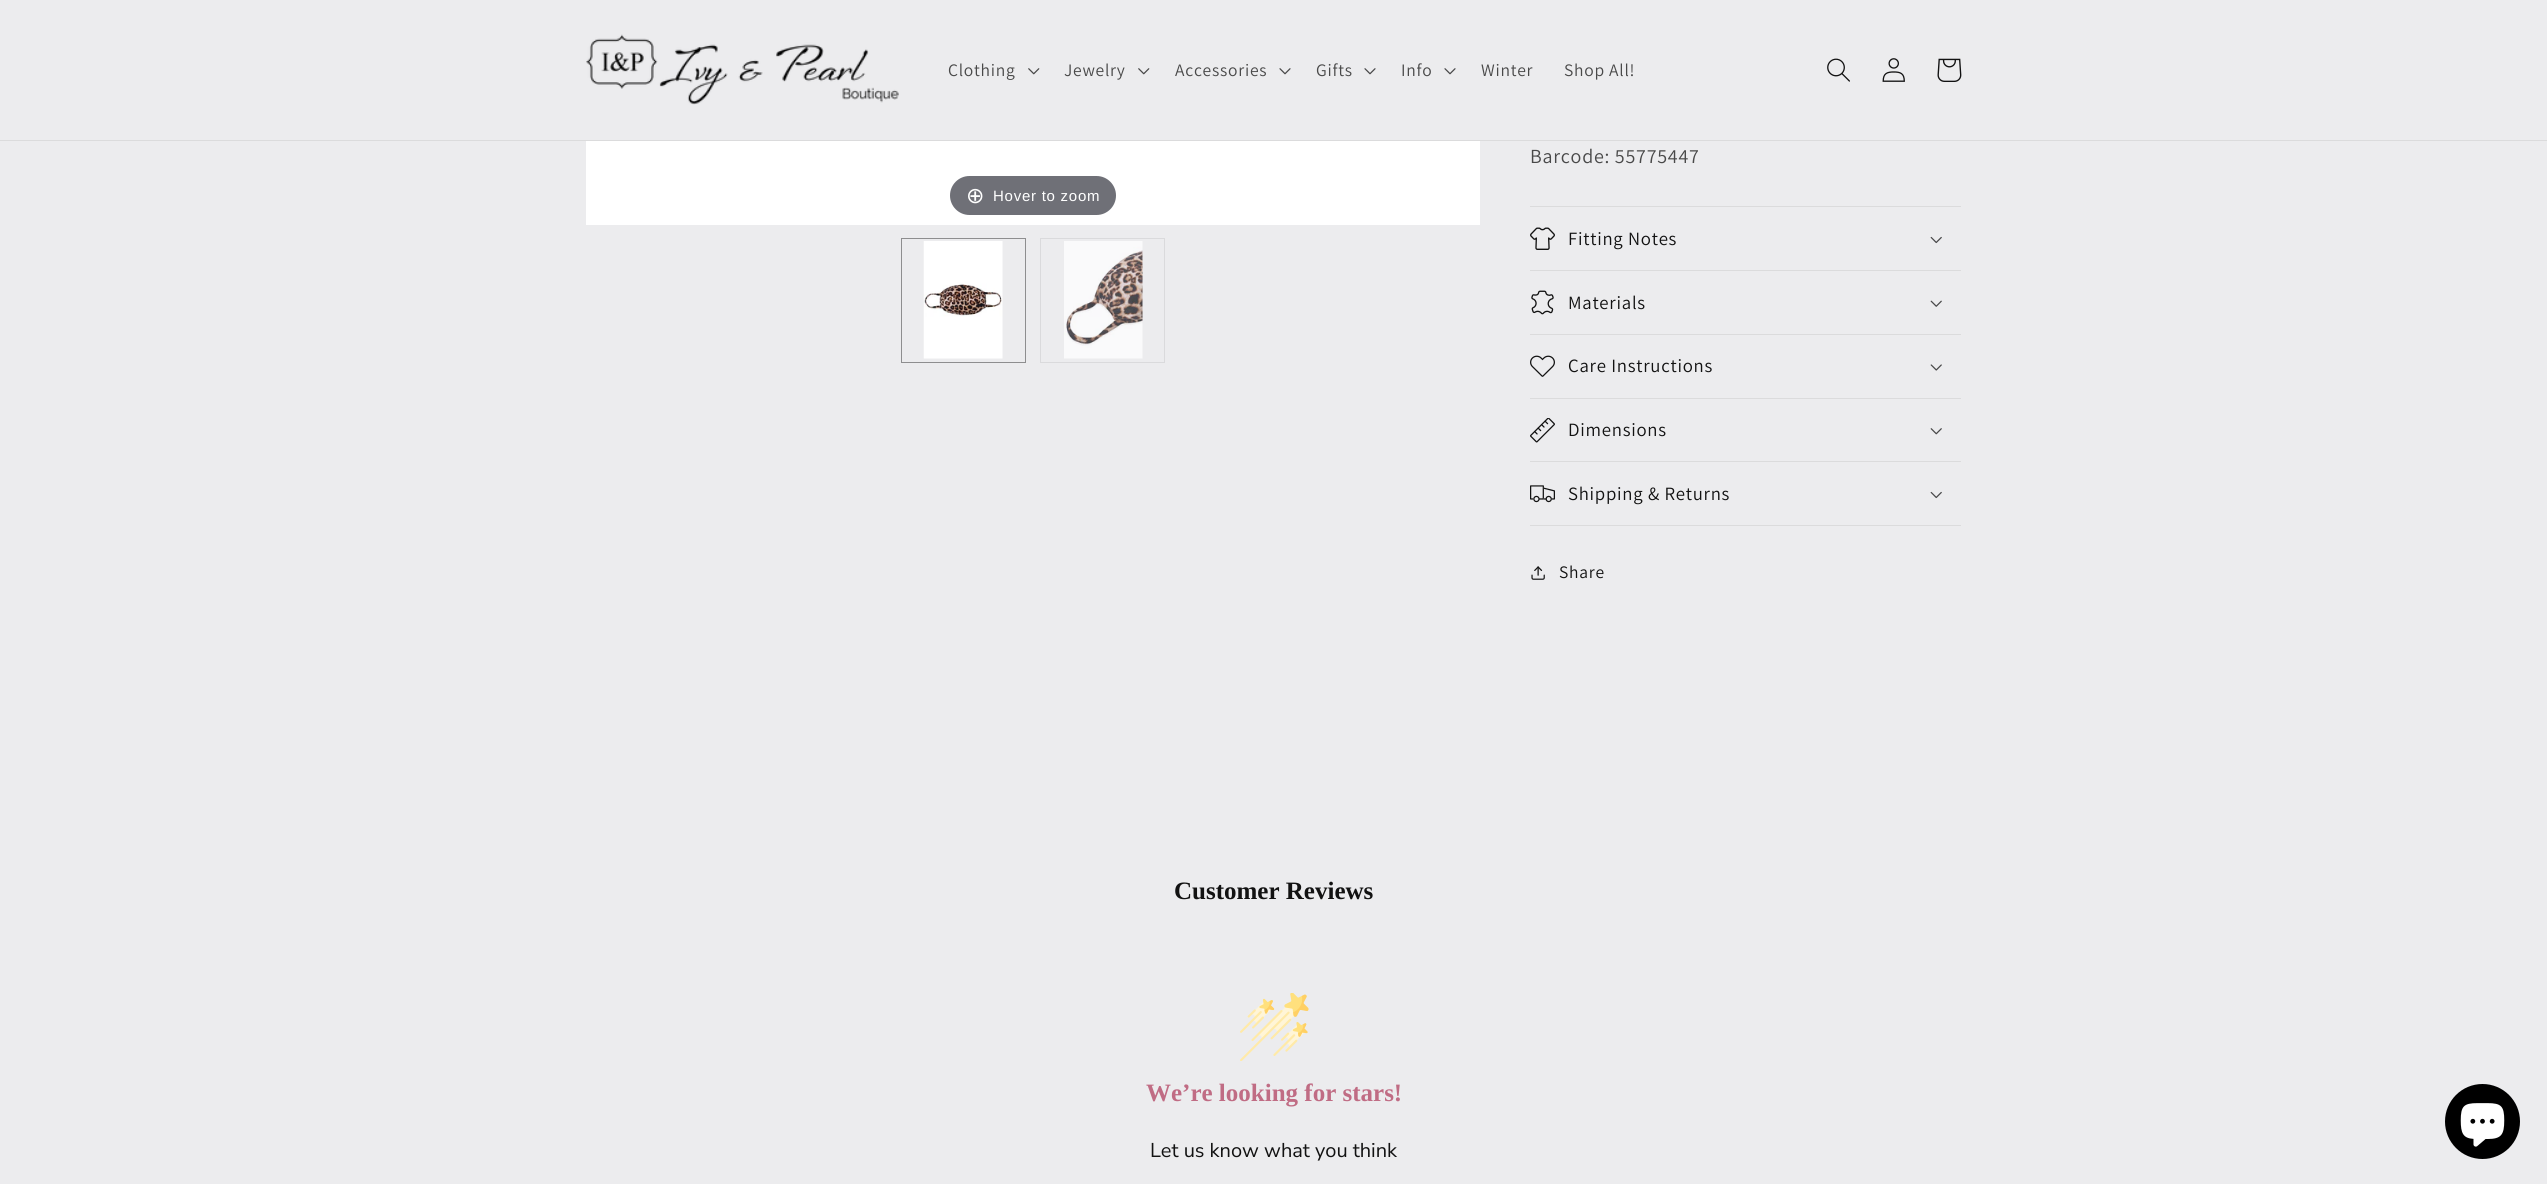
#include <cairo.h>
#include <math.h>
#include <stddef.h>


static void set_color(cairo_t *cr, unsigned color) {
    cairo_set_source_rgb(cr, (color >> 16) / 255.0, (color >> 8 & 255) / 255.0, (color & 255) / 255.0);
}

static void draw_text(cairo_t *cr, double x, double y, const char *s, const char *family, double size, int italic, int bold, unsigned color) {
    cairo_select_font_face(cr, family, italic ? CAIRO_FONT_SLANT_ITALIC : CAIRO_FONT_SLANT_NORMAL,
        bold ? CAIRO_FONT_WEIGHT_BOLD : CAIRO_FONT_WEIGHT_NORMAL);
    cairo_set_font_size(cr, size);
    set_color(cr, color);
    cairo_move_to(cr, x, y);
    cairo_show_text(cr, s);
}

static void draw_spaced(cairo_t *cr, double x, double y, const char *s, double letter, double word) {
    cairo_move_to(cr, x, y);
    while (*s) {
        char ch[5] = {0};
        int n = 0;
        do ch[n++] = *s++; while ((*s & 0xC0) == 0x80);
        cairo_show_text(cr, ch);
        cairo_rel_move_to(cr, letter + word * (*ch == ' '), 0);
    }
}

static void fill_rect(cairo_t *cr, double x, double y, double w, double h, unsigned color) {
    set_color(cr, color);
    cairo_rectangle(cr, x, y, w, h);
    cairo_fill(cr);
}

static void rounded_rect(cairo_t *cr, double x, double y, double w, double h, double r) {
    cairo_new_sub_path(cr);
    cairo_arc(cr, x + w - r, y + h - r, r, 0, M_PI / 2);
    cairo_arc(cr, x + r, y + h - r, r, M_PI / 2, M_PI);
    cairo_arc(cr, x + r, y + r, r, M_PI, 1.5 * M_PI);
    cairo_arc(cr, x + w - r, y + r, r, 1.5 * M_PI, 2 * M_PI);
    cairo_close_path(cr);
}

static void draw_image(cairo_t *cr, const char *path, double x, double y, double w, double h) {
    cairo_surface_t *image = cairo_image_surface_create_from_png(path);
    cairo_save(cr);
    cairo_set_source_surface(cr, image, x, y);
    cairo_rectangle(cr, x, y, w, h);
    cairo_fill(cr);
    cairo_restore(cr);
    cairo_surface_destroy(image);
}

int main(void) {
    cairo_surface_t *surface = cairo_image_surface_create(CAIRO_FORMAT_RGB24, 2547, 1184);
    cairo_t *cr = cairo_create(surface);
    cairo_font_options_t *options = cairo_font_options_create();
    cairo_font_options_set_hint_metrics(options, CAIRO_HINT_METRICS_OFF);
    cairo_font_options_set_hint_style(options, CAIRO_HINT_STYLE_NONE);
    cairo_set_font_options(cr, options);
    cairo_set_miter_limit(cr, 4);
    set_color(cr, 0xECECEE);
    cairo_paint(cr);
    fill_rect(cr, 0, 140, 2547, 1, 0xDBDBDC);
    draw_image(cr, "assets/img1.png", 586, 34, 313, 71);
    cairo_select_font_face(cr, "Assistant", CAIRO_FONT_SLANT_NORMAL, CAIRO_FONT_WEIGHT_NORMAL);
    cairo_set_font_size(cr, 17.5);
    set_color(cr, 0x494949);
    draw_spaced(cr, 948, 76, "Clothing", 0.75, 0);
    draw_image(cr, "assets/img2.png", 1028, 68, 12, 7);
    draw_spaced(cr, 1064, 76, "Jewelry", 0.75, 0);
    draw_image(cr, "assets/img2.png", 1138, 68, 12, 7);
    draw_spaced(cr, 1175, 76, "Accessories", 0.75, 0);
    draw_image(cr, "assets/img3.png", 1279, 68, 12, 7);
    draw_spaced(cr, 1316, 76, "Gifts", 0.75, 0);
    draw_image(cr, "assets/img3.png", 1364, 68, 12, 7);
    draw_spaced(cr, 1401, 76, "Info", 0.75, 0);
    draw_image(cr, "assets/img3.png", 1444, 68, 12, 7);
    draw_spaced(cr, 1481, 76, "Winter", 0.75, 0);
    draw_spaced(cr, 1564, 76, "Shop All!", 0.75, 0);
    draw_image(cr, "assets/img4.png", 1827, 58, 23, 24);
    draw_image(cr, "assets/img5.png", 1882, 58, 23, 24);
    draw_image(cr, "assets/img6.png", 1937, 58, 25, 24);
    fill_rect(cr, 586, 141, 894, 84, 0xFFFFFF);
    set_color(cr, 0x6F7077);
    rounded_rect(cr, 950, 176, 166, 39, 19.5);
    cairo_fill(cr);
    cairo_select_font_face(cr, "DejaVu Sans", CAIRO_FONT_SLANT_NORMAL, CAIRO_FONT_WEIGHT_NORMAL);
    cairo_set_font_size(cr, 22);
    set_color(cr, 0xFFFFFF);
    draw_spaced(cr, 966, 203, "⊕", 0.75, 0);
    cairo_select_font_face(cr, "Liberation Sans", CAIRO_FONT_SLANT_NORMAL, CAIRO_FONT_WEIGHT_NORMAL);
    cairo_set_font_size(cr, 15);
    draw_spaced(cr, 993, 201, "Hover to zoom", 0.75, 0);
    cairo_rectangle(cr, 901.5, 238.5, 124, 124);
    set_color(cr, 0x8E8E8F);
    cairo_set_line_width(cr, 1);
    cairo_stroke(cr);
    draw_image(cr, "assets/img7.png", 923, 241, 80, 118);
    cairo_rectangle(cr, 1040.5, 238.5, 124, 124);
    set_color(cr, 0xDADADC);
    cairo_stroke(cr);
    draw_image(cr, "assets/img8.png", 1064, 241, 79, 118);
    cairo_select_font_face(cr, "Assistant", CAIRO_FONT_SLANT_NORMAL, CAIRO_FONT_WEIGHT_NORMAL);
    cairo_set_font_size(cr, 20);
    set_color(cr, 0x494949);
    draw_spaced(cr, 1530, 163, "Barcode: 55775447", 0.75, 0);
    fill_rect(cr, 1530, 206, 431, 1, 0xDBDBDC);
    fill_rect(cr, 1530, 270, 431, 1, 0xDBDBDC);
    draw_image(cr, "assets/img9.png", 1530, 227, 25, 23);
    cairo_set_font_size(cr, 18.75);
    set_color(cr, 0x121212);
    draw_spaced(cr, 1568, 245, "Fitting Notes", 0.75, 0);
    draw_image(cr, "assets/img10.png", 1930, 236, 12, 8);
    fill_rect(cr, 1530, 334, 431, 1, 0xDBDBDC);
    draw_image(cr, "assets/img11.png", 1531, 290, 23, 25);
    set_color(cr, 0x121212);
    draw_spaced(cr, 1568, 309, "Materials", 0.75, 0);
    draw_image(cr, "assets/img12.png", 1930, 300, 12, 7);
    fill_rect(cr, 1530, 398, 431, 1, 0xDBDBDC);
    draw_image(cr, "assets/img13.png", 1530, 355, 25, 22);
    set_color(cr, 0x121212);
    draw_spaced(cr, 1568, 372, "Care Instructions", 0.75, 0);
    draw_image(cr, "assets/img14.png", 1930, 364, 12, 7);
    fill_rect(cr, 1530, 461, 431, 1, 0xDBDBDC);
    draw_image(cr, "assets/img15.png", 1530, 418, 25, 25);
    set_color(cr, 0x121212);
    draw_spaced(cr, 1568, 436, "Dimensions", 0.75, 0);
    draw_image(cr, "assets/img16.png", 1930, 428, 12, 7);
    fill_rect(cr, 1530, 525, 431, 1, 0xDBDBDC);
    draw_image(cr, "assets/img17.png", 1530, 485, 25, 18);
    set_color(cr, 0x121212);
    draw_spaced(cr, 1568, 500, "Shipping & Returns", 0.75, 0);
    draw_image(cr, "assets/img10.png", 1930, 491, 12, 8);
    draw_image(cr, "assets/img18.png", 1531, 566, 14, 14);
    cairo_set_font_size(cr, 17.5);
    draw_spaced(cr, 1559, 578, "Share", 0.75, 0);
    draw_text(cr, 1174, 899, "Customer Reviews", "Liberation Serif", 25, 0, 1, 0x121212);
    draw_image(cr, "assets/img19.png", 1240, 993, 69, 68);
    draw_text(cr, 1146, 1101, "We’re looking for stars!", "Liberation Serif", 25, 0, 1, 0xC06C84);
    draw_text(cr, 1150, 1157, "Let us know what you think", "Nunito Sans ExtraLight", 20, 0, 0, 0x121212);
    set_color(cr, 0x000000);
    cairo_new_path(cr);
    cairo_arc(cr, 2482.5, 1121.5, 37.5, 0, 2 * M_PI);
    cairo_fill(cr);
    draw_image(cr, "assets/img20.png", 2460, 1103, 45, 44);
    cairo_surface_write_to_png(surface, "output.png");
    cairo_font_options_destroy(options);
    cairo_destroy(cr);
    cairo_surface_destroy(surface);
    return 0;
}
